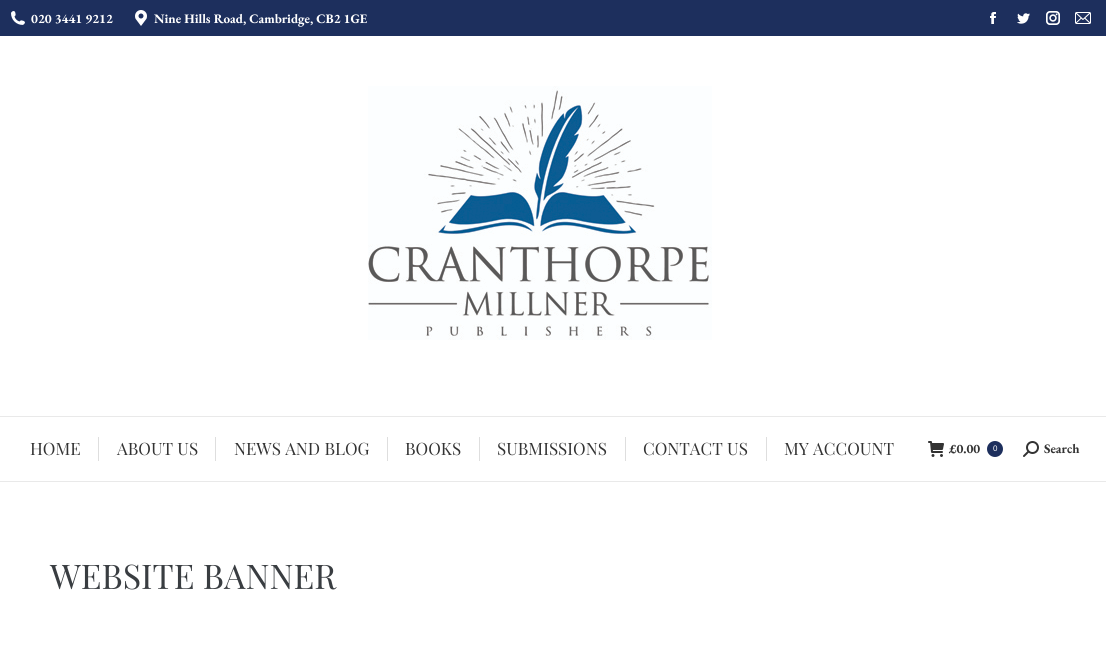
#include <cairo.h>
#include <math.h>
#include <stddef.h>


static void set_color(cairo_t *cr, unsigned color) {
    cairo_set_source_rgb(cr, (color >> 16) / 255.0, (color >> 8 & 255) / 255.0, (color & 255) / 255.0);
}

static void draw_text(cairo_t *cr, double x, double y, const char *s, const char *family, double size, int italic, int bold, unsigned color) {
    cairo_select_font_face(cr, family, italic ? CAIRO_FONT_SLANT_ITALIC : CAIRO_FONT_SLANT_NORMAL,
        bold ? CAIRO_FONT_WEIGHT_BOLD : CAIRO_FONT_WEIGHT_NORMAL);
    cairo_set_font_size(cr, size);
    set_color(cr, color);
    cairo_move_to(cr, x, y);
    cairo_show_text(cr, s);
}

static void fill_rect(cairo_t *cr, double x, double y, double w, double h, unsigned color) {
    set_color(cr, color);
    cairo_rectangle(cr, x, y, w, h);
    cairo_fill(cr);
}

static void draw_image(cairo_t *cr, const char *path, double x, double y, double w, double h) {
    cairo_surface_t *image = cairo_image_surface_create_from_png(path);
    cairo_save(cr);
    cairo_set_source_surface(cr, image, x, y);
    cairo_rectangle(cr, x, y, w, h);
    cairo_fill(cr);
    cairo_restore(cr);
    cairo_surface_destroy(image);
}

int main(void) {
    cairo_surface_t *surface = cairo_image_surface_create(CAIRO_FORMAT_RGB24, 1106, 670);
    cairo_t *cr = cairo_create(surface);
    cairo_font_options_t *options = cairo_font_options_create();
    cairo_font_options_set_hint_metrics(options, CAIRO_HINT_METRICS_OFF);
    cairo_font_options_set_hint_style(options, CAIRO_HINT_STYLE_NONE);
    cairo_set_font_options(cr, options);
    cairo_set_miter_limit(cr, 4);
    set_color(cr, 0xFFFFFF);
    cairo_paint(cr);
    fill_rect(cr, 0, 481, 1106, 1, 0xE9E9E9);
    fill_rect(cr, 0, 0, 1106, 36, 0x1D2F5D);
    draw_image(cr, "assets/img1.png", 11, 11, 14, 14);
    draw_text(cr, 31, 23, "020 3441 9212", "EB Garamond", 13, 0, 1, 0xFFFFFF);
    draw_image(cr, "assets/img2.png", 135, 10, 12, 16);
    draw_text(cr, 154, 23, "Nine Hills Road, Cambridge, CB2 1GE", "EB Garamond", 13, 0, 1, 0xFFFFFF);
    draw_image(cr, "assets/img3.png", 990, 12, 6, 12);
    draw_image(cr, "assets/img4.png", 1017, 13, 13, 11);
    draw_image(cr, "assets/img5.png", 1046, 11, 14, 14);
    draw_image(cr, "assets/img6.png", 1075, 12, 16, 12);
    draw_image(cr, "assets/img7.png", 368, 86, 344, 254);
    fill_rect(cr, 0, 416, 1106, 1, 0xE9E9E9);
    draw_text(cr, 30, 455, "HOME", "Playfair Display", 17, 0, 0, 0x333333);
    fill_rect(cr, 98, 437, 1, 24, 0xDEDEDE);
    draw_text(cr, 117, 455, "ABOUT US", "Playfair Display", 17, 0, 0, 0x333333);
    fill_rect(cr, 215, 437, 1, 24, 0xDEDEDE);
    draw_text(cr, 234, 455, "NEWS AND BLOG", "Playfair Display", 17, 0, 0, 0x333333);
    fill_rect(cr, 387, 437, 1, 24, 0xDEDEDE);
    draw_text(cr, 405, 455, "BOOKS", "Playfair Display", 17, 0, 0, 0x333333);
    fill_rect(cr, 479, 437, 1, 24, 0xDEDEDE);
    draw_text(cr, 497, 455, "SUBMISSIONS", "Playfair Display", 17, 0, 0, 0x333333);
    fill_rect(cr, 625, 437, 1, 24, 0xDEDEDE);
    draw_text(cr, 643, 455, "CONTACT US", "Playfair Display", 17, 0, 0, 0x333333);
    fill_rect(cr, 766, 437, 1, 24, 0xDEDEDE);
    draw_text(cr, 784, 455, "MY ACCOUNT", "Playfair Display", 17, 0, 0, 0x333333);
    draw_image(cr, "assets/img8.png", 928, 441, 16, 16);
    draw_text(cr, 949, 453, "£0.00", "EB Garamond", 13, 0, 1, 0x333333);
    set_color(cr, 0x1D2F5D);
    cairo_new_path(cr);
    cairo_arc(cr, 995, 449, 8, 0, 2 * M_PI);
    cairo_fill(cr);
    draw_text(cr, 993, 451, "0", "Liberation Sans", 8, 0, 0, 0xFFFFFF);
    draw_image(cr, "assets/img9.png", 1023, 441, 16, 16);
    draw_text(cr, 1044, 453, "Search", "EB Garamond", 13, 0, 1, 0x333333);
    draw_text(cr, 50, 589, "WEBSITE BANNER", "Playfair Display", 34, 0, 0, 0x393D41);
    cairo_surface_write_to_png(surface, "output.png");
    cairo_font_options_destroy(options);
    cairo_destroy(cr);
    cairo_surface_destroy(surface);
    return 0;
}
